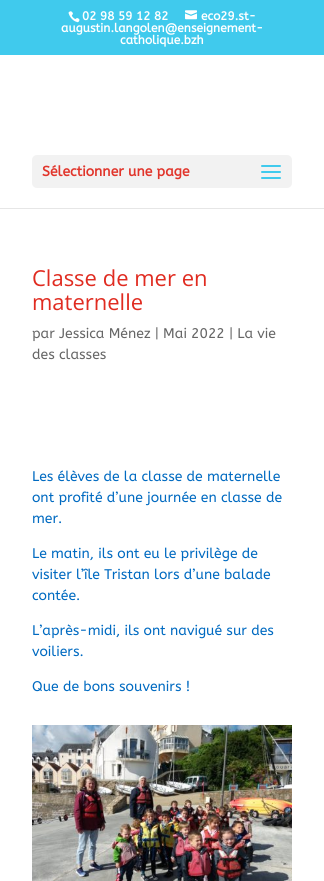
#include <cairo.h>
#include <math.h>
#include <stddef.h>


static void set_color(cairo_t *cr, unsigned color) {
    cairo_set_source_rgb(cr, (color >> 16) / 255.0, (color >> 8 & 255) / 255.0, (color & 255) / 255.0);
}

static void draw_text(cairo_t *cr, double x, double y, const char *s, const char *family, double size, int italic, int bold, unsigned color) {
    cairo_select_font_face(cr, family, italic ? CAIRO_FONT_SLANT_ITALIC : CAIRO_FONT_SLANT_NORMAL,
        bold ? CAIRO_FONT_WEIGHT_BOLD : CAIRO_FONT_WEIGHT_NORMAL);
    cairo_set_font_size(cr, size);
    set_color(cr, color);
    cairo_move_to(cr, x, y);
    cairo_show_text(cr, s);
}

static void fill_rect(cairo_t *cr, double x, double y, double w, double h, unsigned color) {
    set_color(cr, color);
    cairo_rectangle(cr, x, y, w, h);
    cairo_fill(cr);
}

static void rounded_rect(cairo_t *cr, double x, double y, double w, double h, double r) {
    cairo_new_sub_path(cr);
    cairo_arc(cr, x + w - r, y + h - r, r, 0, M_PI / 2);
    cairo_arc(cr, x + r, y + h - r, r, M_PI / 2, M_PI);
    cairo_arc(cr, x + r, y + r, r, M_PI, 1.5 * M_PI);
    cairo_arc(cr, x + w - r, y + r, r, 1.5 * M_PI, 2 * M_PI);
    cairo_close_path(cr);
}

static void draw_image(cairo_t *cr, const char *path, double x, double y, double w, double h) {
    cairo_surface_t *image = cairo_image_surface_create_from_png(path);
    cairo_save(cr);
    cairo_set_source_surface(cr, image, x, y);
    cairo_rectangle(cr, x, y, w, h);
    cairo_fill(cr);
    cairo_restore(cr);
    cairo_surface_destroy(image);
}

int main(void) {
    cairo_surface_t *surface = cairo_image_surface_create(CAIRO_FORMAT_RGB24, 324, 881);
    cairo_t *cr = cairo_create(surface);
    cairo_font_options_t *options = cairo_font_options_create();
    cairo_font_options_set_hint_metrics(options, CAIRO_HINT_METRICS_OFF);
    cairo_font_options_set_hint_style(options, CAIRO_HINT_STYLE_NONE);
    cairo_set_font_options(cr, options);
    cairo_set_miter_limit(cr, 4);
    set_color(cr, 0xFFFFFF);
    cairo_paint(cr);
    fill_rect(cr, 0, 0, 324, 55, 0x40CAED);
    draw_image(cr, "assets/img1.png", 68, 11, 12, 12);
    draw_text(cr, 82, 20, "02 98 59 12 82", "ABeeZee", 12, 0, 1, 0xFFFFFF);
    draw_image(cr, "assets/img2.png", 185, 10, 12, 10);
    draw_text(cr, 201, 20, "eco29.st-", "ABeeZee", 12, 0, 1, 0xFFFFFF);
    draw_text(cr, 61, 32, "augustin.langolen@enseignement-", "ABeeZee", 12, 0, 1, 0xFFFFFF);
    draw_text(cr, 120, 44, "catholique.bzh", "ABeeZee", 12, 0, 1, 0xFFFFFF);
    fill_rect(cr, 0, 208, 324, 1, 0xE6E6E6);
    set_color(cr, 0xF2F2F2);
    rounded_rect(cr, 32, 155, 260, 33, 5);
    cairo_fill(cr);
    draw_text(cr, 42, 176, "Sélectionner une page", "ABeeZee", 14, 0, 1, 0xE1352B);
    draw_image(cr, "assets/img3.png", 261, 165, 20, 14);
    draw_text(cr, 32, 286, "Classe de mer en", "Open Sans", 22, 0, 0, 0xE02B20);
    draw_text(cr, 32, 310, "maternelle", "Open Sans", 22, 0, 0, 0xE02B20);
    draw_text(cr, 32, 338, "par Jessica Ménez | Mai 2022 | La vie", "ABeeZee", 14, 0, 0, 0x666666);
    draw_text(cr, 32, 359, "des classes", "ABeeZee", 14, 0, 0, 0x666666);
    draw_text(cr, 32, 481, "Les élèves de la classe de maternelle", "ABeeZee", 14, 0, 0, 0x006AC1);
    draw_text(cr, 32, 502, "ont profité d’une journée en classe de", "ABeeZee", 14, 0, 0, 0x006AC1);
    draw_text(cr, 32, 523, "mer.", "ABeeZee", 14, 0, 0, 0x006AC1);
    draw_text(cr, 32, 558, "Le matin, ils ont eu le privilège de", "ABeeZee", 14, 0, 0, 0x006AC1);
    draw_text(cr, 32, 579, "visiter l’île Tristan lors d’une balade", "ABeeZee", 14, 0, 0, 0x006AC1);
    draw_text(cr, 32, 600, "contée.", "ABeeZee", 14, 0, 0, 0x006AC1);
    draw_text(cr, 32, 635, "L’après-midi, ils ont navigué sur des", "ABeeZee", 14, 0, 0, 0x006AC1);
    draw_text(cr, 32, 656, "voiliers.", "ABeeZee", 14, 0, 0, 0x006AC1);
    draw_text(cr, 32, 691, "Que de bons souvenirs !", "ABeeZee", 14, 0, 0, 0x006AC1);
    draw_image(cr, "assets/img4.png", 32, 725, 260, 156);
    cairo_surface_write_to_png(surface, "output.png");
    cairo_font_options_destroy(options);
    cairo_destroy(cr);
    cairo_surface_destroy(surface);
    return 0;
}
